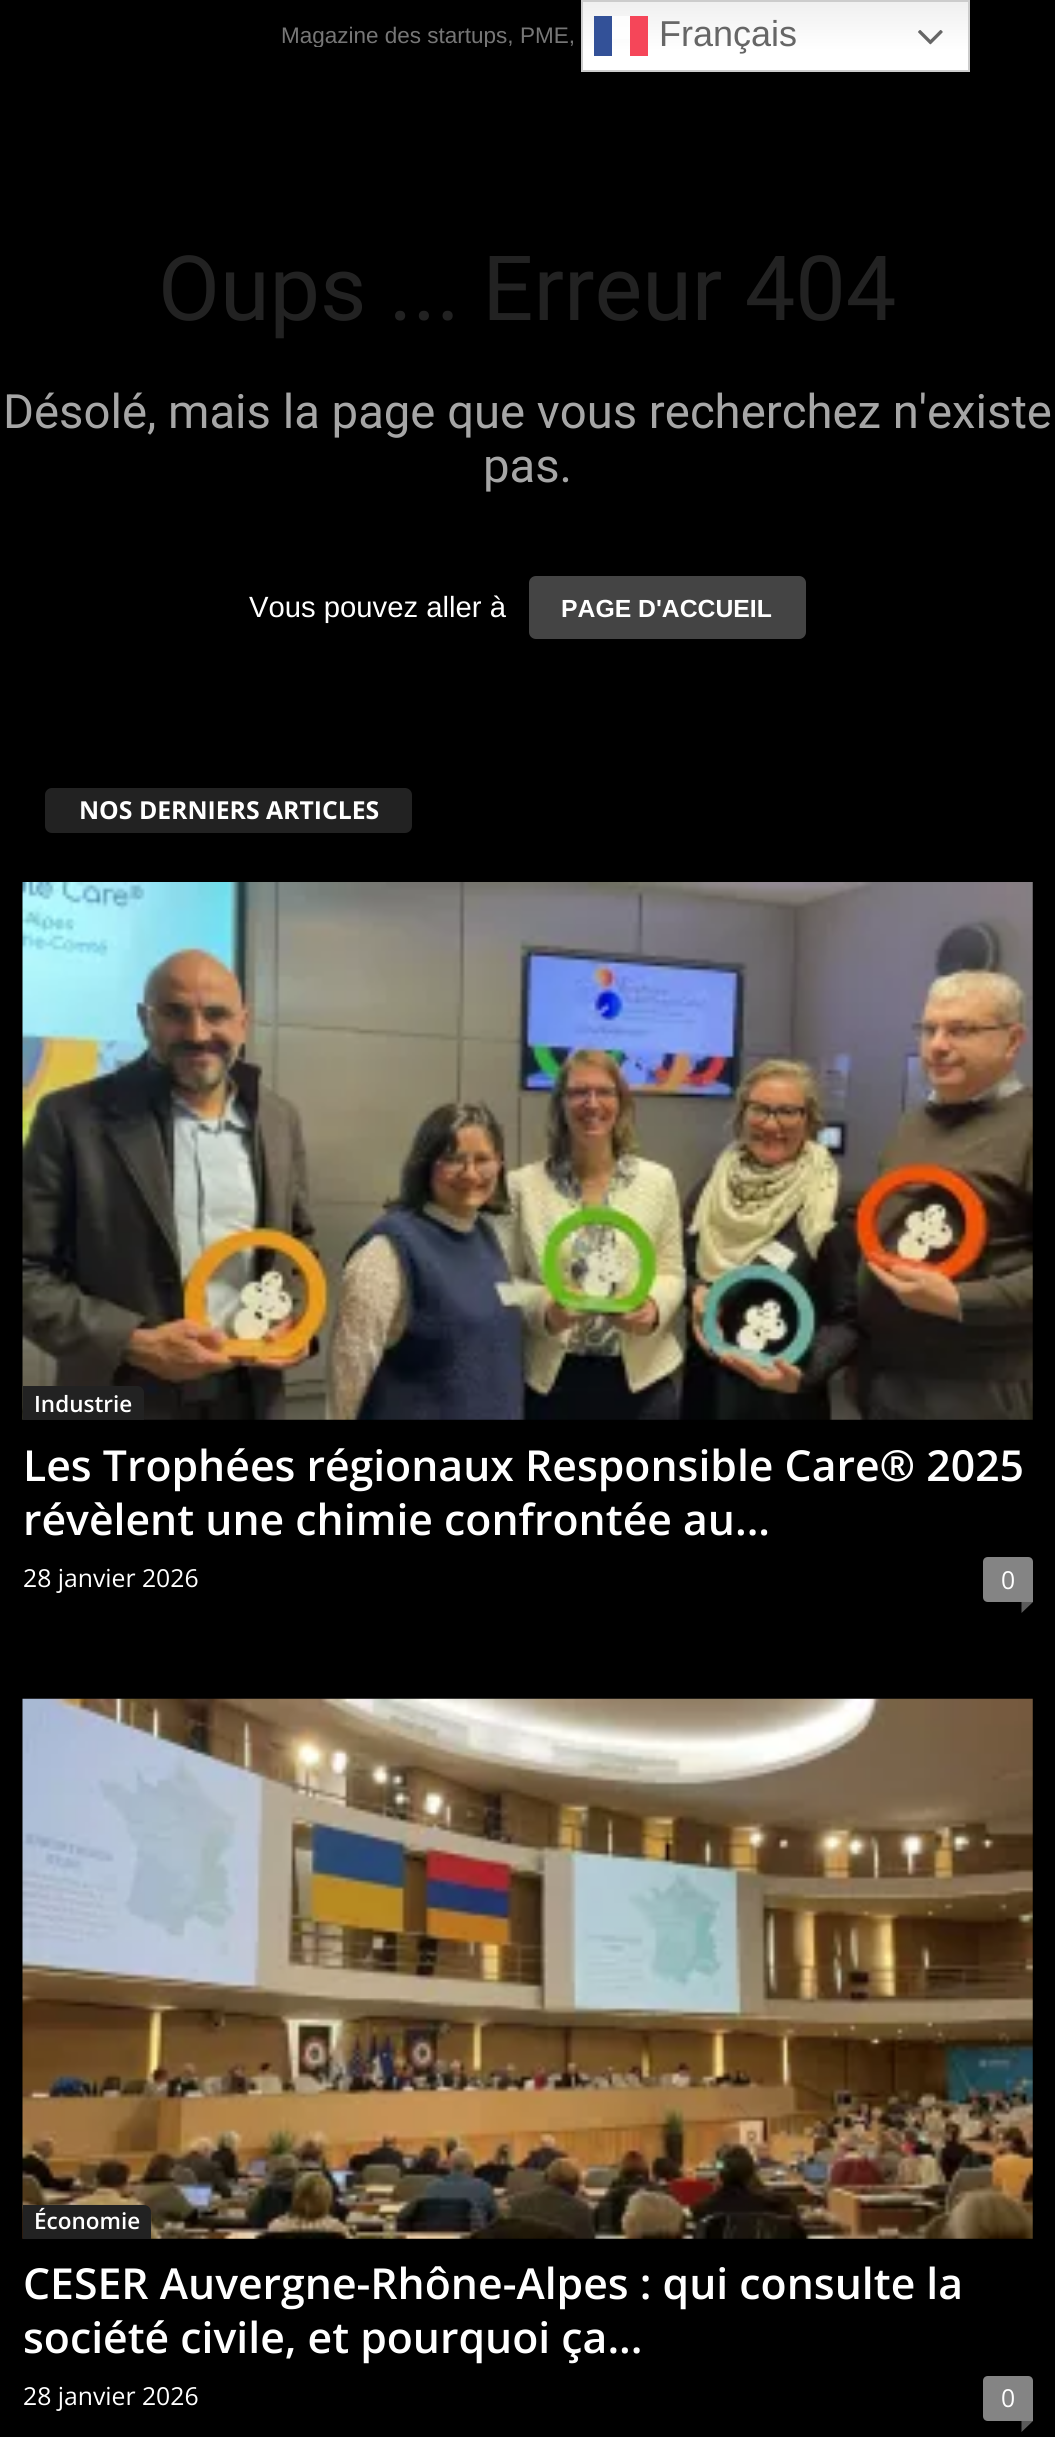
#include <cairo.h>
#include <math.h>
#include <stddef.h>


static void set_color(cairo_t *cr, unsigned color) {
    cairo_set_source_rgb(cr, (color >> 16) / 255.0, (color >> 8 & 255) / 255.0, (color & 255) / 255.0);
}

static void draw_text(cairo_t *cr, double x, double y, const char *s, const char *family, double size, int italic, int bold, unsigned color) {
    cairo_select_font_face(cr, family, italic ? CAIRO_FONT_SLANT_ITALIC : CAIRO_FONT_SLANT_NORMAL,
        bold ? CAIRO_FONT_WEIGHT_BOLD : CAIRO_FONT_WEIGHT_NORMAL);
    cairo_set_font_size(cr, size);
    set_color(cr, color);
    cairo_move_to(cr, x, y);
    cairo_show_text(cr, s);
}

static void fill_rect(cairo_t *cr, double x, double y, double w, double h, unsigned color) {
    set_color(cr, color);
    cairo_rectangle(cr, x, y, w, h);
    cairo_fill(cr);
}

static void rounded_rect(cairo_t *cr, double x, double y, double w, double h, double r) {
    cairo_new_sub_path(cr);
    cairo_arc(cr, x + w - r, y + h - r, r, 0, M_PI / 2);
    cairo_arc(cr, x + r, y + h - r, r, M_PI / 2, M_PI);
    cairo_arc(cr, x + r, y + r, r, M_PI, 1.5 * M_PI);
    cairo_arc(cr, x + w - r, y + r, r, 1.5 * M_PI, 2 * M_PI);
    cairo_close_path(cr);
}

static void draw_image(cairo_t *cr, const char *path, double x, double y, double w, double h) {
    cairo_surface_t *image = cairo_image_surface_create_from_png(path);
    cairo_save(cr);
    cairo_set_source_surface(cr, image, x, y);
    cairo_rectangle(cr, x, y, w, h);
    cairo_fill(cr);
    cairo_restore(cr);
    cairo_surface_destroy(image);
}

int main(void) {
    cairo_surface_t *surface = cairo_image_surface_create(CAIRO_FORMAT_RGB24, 1055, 2437);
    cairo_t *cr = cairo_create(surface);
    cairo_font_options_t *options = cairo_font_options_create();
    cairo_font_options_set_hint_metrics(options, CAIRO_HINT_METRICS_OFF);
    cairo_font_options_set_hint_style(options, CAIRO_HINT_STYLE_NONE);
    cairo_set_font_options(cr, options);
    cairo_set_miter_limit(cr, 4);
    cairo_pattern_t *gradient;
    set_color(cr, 0x000000);
    cairo_paint(cr);
    gradient = cairo_pattern_create_linear(775, 0, 775, 72);
    cairo_pattern_add_color_stop_rgba(gradient, 0, 0.937, 0.937, 0.937, 1);
    cairo_pattern_add_color_stop_rgba(gradient, 0.7, 1, 1, 1, 1);
    cairo_set_source(cr, gradient);
    cairo_pattern_destroy(gradient);
    cairo_rectangle(cr, 583, 2, 385, 68);
    cairo_fill(cr);
    cairo_rectangle(cr, 582, 1, 387, 70);
    set_color(cr, 0xCCCCCC);
    cairo_stroke(cr);
    fill_rect(cr, 594, 16, 18, 40, 0x335198);
    cairo_set_source_rgba(cr, 1, 1, 1, 0.8);
    cairo_rectangle(cr, 612, 16, 18, 23);
    cairo_fill(cr);
    fill_rect(cr, 630, 16, 18, 40, 0xF54659);
    draw_text(cr, 659, 46, "Français", "Liberation Sans", 36, 0, 0, 0x666666);
    draw_image(cr, "assets/img1.png", 918, 30, 25, 15);
    draw_text(cr, 281, 43, "Magazine des startups, PME,", "Liberation Sans", 22.5, 0, 0, 0x767676);
    fill_rect(cr, 315, 47, 172, 1, 0x000000);
    draw_text(cr, 158, 320, "Oups ... Erreur 404", "Roboto", 90, 0, 0, 0x222222);
    draw_text(cr, 3, 428, "Désolé, mais la page que vous recherchez n'existe", "Roboto", 47.25, 0, 0, 0xA6A6A6);
    draw_text(cr, 483, 482, "pas.", "Roboto", 47.25, 0, 0, 0xA6A6A6);
    draw_text(cr, 249, 617, "Vous pouvez aller à", "Liberation Sans", 29.25, 0, 0, 0xFFFFFF);
    set_color(cr, 0x444444);
    rounded_rect(cr, 529, 576, 277, 63, 7);
    cairo_fill(cr);
    draw_text(cr, 561, 617, "PAGE D'ACCUEIL", "Liberation Sans", 24.75, 0, 1, 0xFFFFFF);
    set_color(cr, 0x222222);
    rounded_rect(cr, 45, 788, 367, 45, 7);
    cairo_fill(cr);
    draw_text(cr, 79, 819, "NOS DERNIERS ARTICLES", "Open Sans", 24.75, 0, 1, 0xFFFFFF);
    draw_image(cr, "assets/img2.png", 22, 882, 1011, 538);
    set_color(cr, 0x222222);
    cairo_new_path(cr);
    cairo_move_to(cr, 23, 1386);
    cairo_line_to(cr, 137, 1386);
    cairo_curve_to(cr, 141, 1386, 144, 1389, 144, 1393);
    cairo_line_to(cr, 144, 1420);
    cairo_line_to(cr, 23, 1420);
    cairo_close_path(cr);
    cairo_fill(cr);
    draw_text(cr, 34, 1412, "Industrie", "Open Sans SemiBold", 22.5, 0, 0, 0xFFFFFF);
    draw_text(cr, 23, 1481, "Les Trophées régionaux Responsible Care® 2025", "Open Sans SemiBold", 42.75, 0, 0, 0xFFFFFF);
    draw_text(cr, 23, 1535, "révèlent une chimie confrontée au...", "Open Sans SemiBold", 42.75, 0, 0, 0xFFFFFF);
    draw_text(cr, 23, 1587, "28 janvier 2026", "Open Sans", 24.75, 0, 0, 0xFFFFFF);
    set_color(cr, 0x848484);
    cairo_new_path(cr);
    cairo_move_to(cr, 988, 1557);
    cairo_line_to(cr, 1028, 1557);
    cairo_curve_to(cr, 1031, 1557, 1033, 1559, 1033, 1562);
    cairo_line_to(cr, 1033, 1602);
    cairo_line_to(cr, 988, 1602);
    cairo_curve_to(cr, 985, 1602, 983, 1600, 983, 1597);
    cairo_line_to(cr, 983, 1562);
    cairo_curve_to(cr, 983, 1559, 985, 1557, 988, 1557);
    cairo_close_path(cr);
    cairo_fill(cr);
    draw_text(cr, 1001, 1589, "0", "Open Sans", 24.75, 0, 0, 0xFFFFFF);
    set_color(cr, 0x5B5B5B);
    cairo_new_path(cr);
    cairo_move_to(cr, 1021.5, 1602);
    cairo_line_to(cr, 1033, 1602);
    cairo_line_to(cr, 1021.5, 1613);
    cairo_close_path(cr);
    cairo_fill(cr);
    draw_image(cr, "assets/img3.png", 22, 1698, 1011, 541);
    set_color(cr, 0x222222);
    cairo_new_path(cr);
    cairo_move_to(cr, 23, 2205);
    cairo_line_to(cr, 144, 2205);
    cairo_curve_to(cr, 148, 2205, 151, 2208, 151, 2212);
    cairo_line_to(cr, 151, 2239);
    cairo_line_to(cr, 23, 2239);
    cairo_close_path(cr);
    cairo_fill(cr);
    draw_text(cr, 34, 2229, "Économie", "Open Sans SemiBold", 22.5, 0, 0, 0xFFFFFF);
    draw_text(cr, 23, 2299, "CESER Auvergne-Rhône-Alpes : qui consulte la", "Open Sans SemiBold", 42.75, 0, 0, 0xFFFFFF);
    draw_text(cr, 23, 2353, "société civile, et pourquoi ça...", "Open Sans SemiBold", 42.75, 0, 0, 0xFFFFFF);
    draw_text(cr, 23, 2405, "28 janvier 2026", "Open Sans", 24.75, 0, 0, 0xFFFFFF);
    set_color(cr, 0x848484);
    cairo_new_path(cr);
    cairo_move_to(cr, 988, 2376);
    cairo_line_to(cr, 1028, 2376);
    cairo_curve_to(cr, 1031, 2376, 1033, 2378, 1033, 2381);
    cairo_line_to(cr, 1033, 2421);
    cairo_line_to(cr, 988, 2421);
    cairo_curve_to(cr, 985, 2421, 983, 2419, 983, 2416);
    cairo_line_to(cr, 983, 2381);
    cairo_curve_to(cr, 983, 2378, 985, 2376, 988, 2376);
    cairo_close_path(cr);
    cairo_fill(cr);
    draw_text(cr, 1001, 2407, "0", "Open Sans", 24.75, 0, 0, 0xFFFFFF);
    set_color(cr, 0x5B5B5B);
    cairo_new_path(cr);
    cairo_move_to(cr, 1021.5, 2421);
    cairo_line_to(cr, 1033, 2421);
    cairo_line_to(cr, 1021.5, 2432);
    cairo_close_path(cr);
    cairo_fill(cr);
    cairo_surface_write_to_png(surface, "output.png");
    cairo_font_options_destroy(options);
    cairo_destroy(cr);
    cairo_surface_destroy(surface);
    return 0;
}
